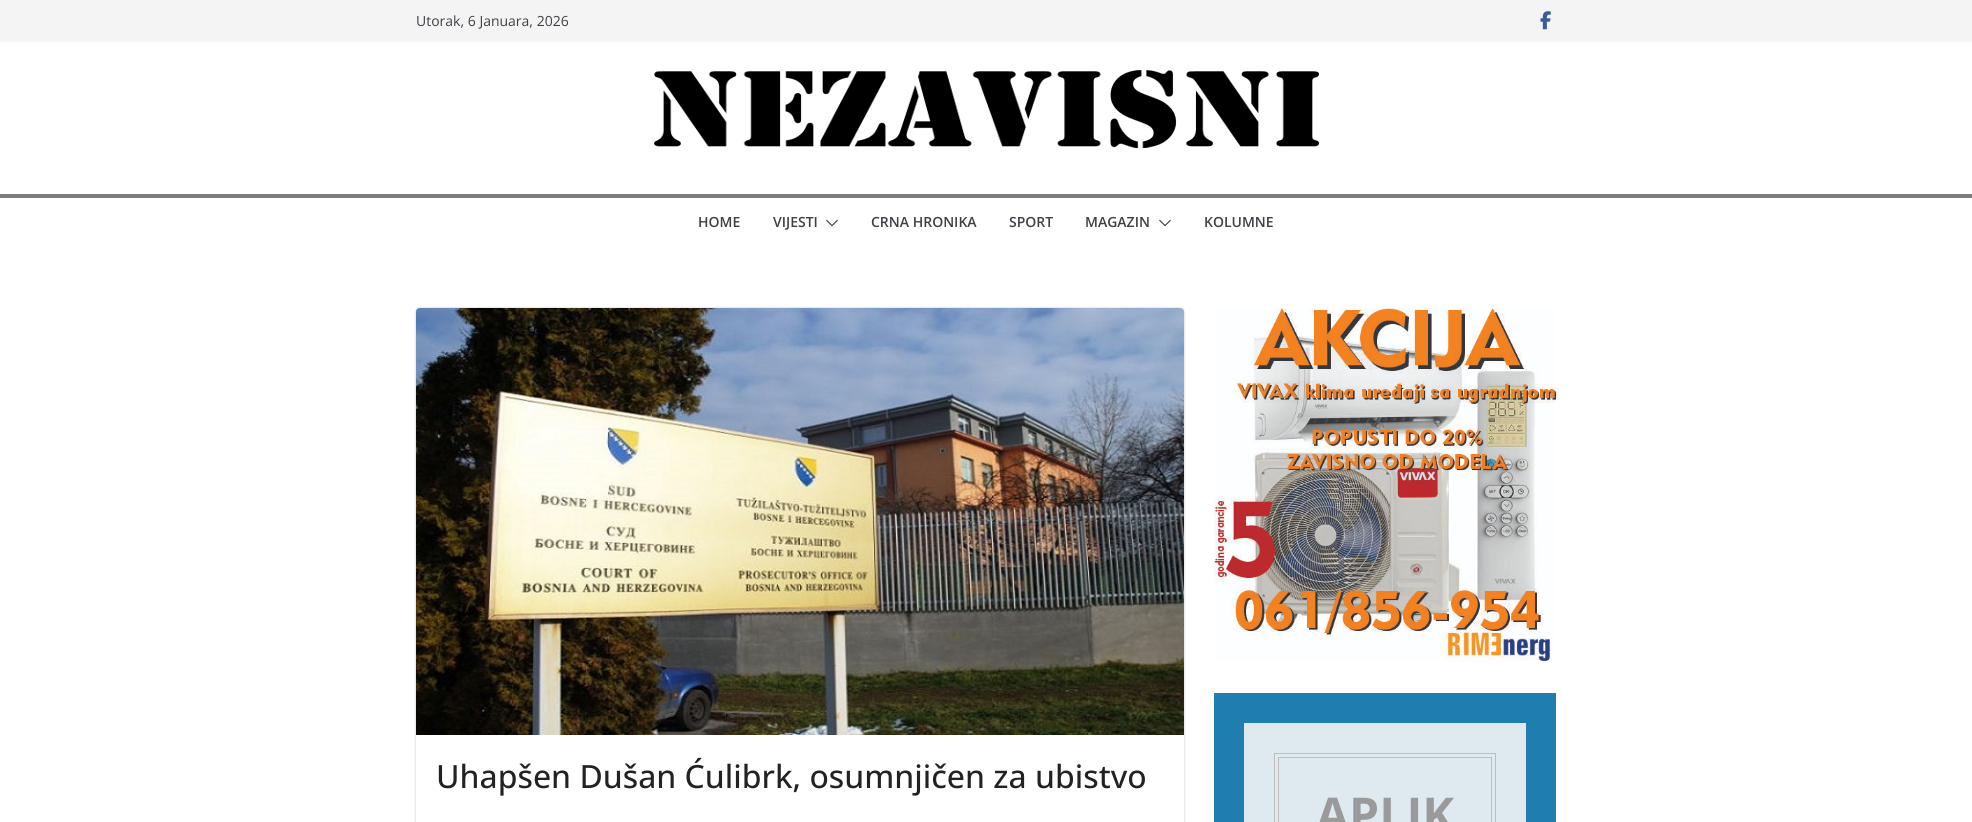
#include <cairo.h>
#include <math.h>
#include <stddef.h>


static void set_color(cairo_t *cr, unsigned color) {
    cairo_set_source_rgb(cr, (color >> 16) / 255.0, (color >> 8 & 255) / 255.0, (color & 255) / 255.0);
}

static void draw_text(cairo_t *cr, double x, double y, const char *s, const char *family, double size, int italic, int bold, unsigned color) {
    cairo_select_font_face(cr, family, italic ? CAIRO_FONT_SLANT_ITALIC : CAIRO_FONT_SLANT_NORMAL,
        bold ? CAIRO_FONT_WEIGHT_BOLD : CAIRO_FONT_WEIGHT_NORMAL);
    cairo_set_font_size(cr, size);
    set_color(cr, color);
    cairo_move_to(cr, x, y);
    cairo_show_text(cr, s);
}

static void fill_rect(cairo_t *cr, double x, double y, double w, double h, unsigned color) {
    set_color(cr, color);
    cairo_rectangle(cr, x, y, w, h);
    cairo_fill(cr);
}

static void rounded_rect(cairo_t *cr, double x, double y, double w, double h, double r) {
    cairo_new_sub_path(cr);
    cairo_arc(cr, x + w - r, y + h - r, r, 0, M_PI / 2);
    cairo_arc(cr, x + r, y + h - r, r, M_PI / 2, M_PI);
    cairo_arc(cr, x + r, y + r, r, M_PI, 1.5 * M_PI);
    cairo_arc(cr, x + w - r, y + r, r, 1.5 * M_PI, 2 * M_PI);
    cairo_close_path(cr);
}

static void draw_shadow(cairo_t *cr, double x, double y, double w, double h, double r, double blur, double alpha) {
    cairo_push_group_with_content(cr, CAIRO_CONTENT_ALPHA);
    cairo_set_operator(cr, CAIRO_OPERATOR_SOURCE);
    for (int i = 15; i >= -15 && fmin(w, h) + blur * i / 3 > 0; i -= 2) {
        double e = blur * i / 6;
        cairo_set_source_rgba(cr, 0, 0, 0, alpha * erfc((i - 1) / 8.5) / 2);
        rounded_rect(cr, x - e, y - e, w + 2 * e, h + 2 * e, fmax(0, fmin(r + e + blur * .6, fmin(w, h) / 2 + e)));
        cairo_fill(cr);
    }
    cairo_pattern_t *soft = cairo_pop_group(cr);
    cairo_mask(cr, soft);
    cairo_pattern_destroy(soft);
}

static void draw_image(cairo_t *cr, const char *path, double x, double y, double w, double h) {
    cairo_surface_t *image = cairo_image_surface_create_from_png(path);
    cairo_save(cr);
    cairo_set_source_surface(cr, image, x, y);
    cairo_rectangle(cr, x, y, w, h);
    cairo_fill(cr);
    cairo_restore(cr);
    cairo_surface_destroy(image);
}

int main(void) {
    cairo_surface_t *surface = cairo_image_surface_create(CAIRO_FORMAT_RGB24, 1972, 822);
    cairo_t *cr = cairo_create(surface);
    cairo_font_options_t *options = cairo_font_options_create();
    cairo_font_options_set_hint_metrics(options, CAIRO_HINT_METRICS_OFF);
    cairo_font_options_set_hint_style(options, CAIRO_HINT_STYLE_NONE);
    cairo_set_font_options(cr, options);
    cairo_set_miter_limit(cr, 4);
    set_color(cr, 0xFFFFFF);
    cairo_paint(cr);
    set_color(cr, 0x000000);
    draw_shadow(cr, 0, 0, 1972, 41, 0, 1, 0.1);
    fill_rect(cr, 0, 0, 1972, 41, 0xF4F4F5);
    draw_text(cr, 416, 26, "Utorak, 6 Januara, 2026", "Open Sans", 14, 0, 0, 0x3F3F46);
    draw_image(cr, "assets/img1.png", 1540, 11, 11, 19);
    draw_image(cr, "assets/img2.png", 654, 70, 665, 78);
    fill_rect(cr, 0, 194, 1972, 4, 0x7D7D7D);
    draw_text(cr, 698, 227, "HOME", "Open Sans SemiBold", 14, 0, 0, 0x3F3F46);
    draw_text(cr, 773, 227, "VIJESTI", "Open Sans SemiBold", 14, 0, 0, 0x3F3F46);
    draw_image(cr, "assets/img3.png", 826, 219, 12, 8);
    draw_text(cr, 871, 227, "CRNA HRONIKA", "Open Sans SemiBold", 14, 0, 0, 0x3F3F46);
    draw_text(cr, 1009, 227, "SPORT", "Open Sans SemiBold", 14, 0, 0, 0x3F3F46);
    draw_text(cr, 1085, 227, "MAGAZIN", "Open Sans SemiBold", 14, 0, 0, 0x3F3F46);
    draw_image(cr, "assets/img3.png", 1159, 219, 12, 8);
    draw_text(cr, 1204, 227, "KOLUMNE", "Open Sans SemiBold", 14, 0, 0, 0x3F3F46);
    cairo_save(cr);
    cairo_set_fill_rule(cr, CAIRO_FILL_RULE_EVEN_ODD);
    cairo_new_path(cr);
    cairo_move_to(cr, 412, 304);
    cairo_line_to(cr, 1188, 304);
    cairo_line_to(cr, 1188, 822);
    cairo_line_to(cr, 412, 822);
    cairo_close_path(cr);
    cairo_move_to(cr, 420, 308);
    cairo_line_to(cr, 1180, 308);
    cairo_curve_to(cr, 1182, 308, 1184, 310, 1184, 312);
    cairo_line_to(cr, 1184, 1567);
    cairo_curve_to(cr, 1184, 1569, 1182, 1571, 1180, 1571);
    cairo_line_to(cr, 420, 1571);
    cairo_curve_to(cr, 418, 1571, 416, 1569, 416, 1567);
    cairo_line_to(cr, 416, 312);
    cairo_curve_to(cr, 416, 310, 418, 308, 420, 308);
    cairo_close_path(cr);
    cairo_clip(cr);
    set_color(cr, 0x000000);
    draw_shadow(cr, 416, 308, 768, 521, 4, 1, 0.24);
    cairo_restore(cr);
    draw_image(cr, "assets/img4.png", 416, 308, 768, 427);
    draw_text(cr, 436, 788, "Uhapšen Dušan Ćulibrk, osumnjičen za ubistvo", "Open Sans Medium", 32, 0, 0, 0x222222);
    draw_image(cr, "assets/img5.png", 1214, 308, 342, 353);
    fill_rect(cr, 1214, 693, 342, 129, 0x207DAF);
    fill_rect(cr, 1244, 723, 282, 99, 0xDEEAF0);
    cairo_rectangle(cr, 1274.5, 753.5, 221, 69);
    set_color(cr, 0xC0BCB9);
    cairo_set_line_width(cr, 1);
    cairo_stroke(cr);
    cairo_rectangle(cr, 1278.5, 757.5, 213, 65);
    cairo_stroke(cr);
    draw_text(cr, 1316, 832, "APLIK", "Open Sans", 48, 0, 1, 0x9A9A9A);
    cairo_surface_write_to_png(surface, "output.png");
    cairo_font_options_destroy(options);
    cairo_destroy(cr);
    cairo_surface_destroy(surface);
    return 0;
}
